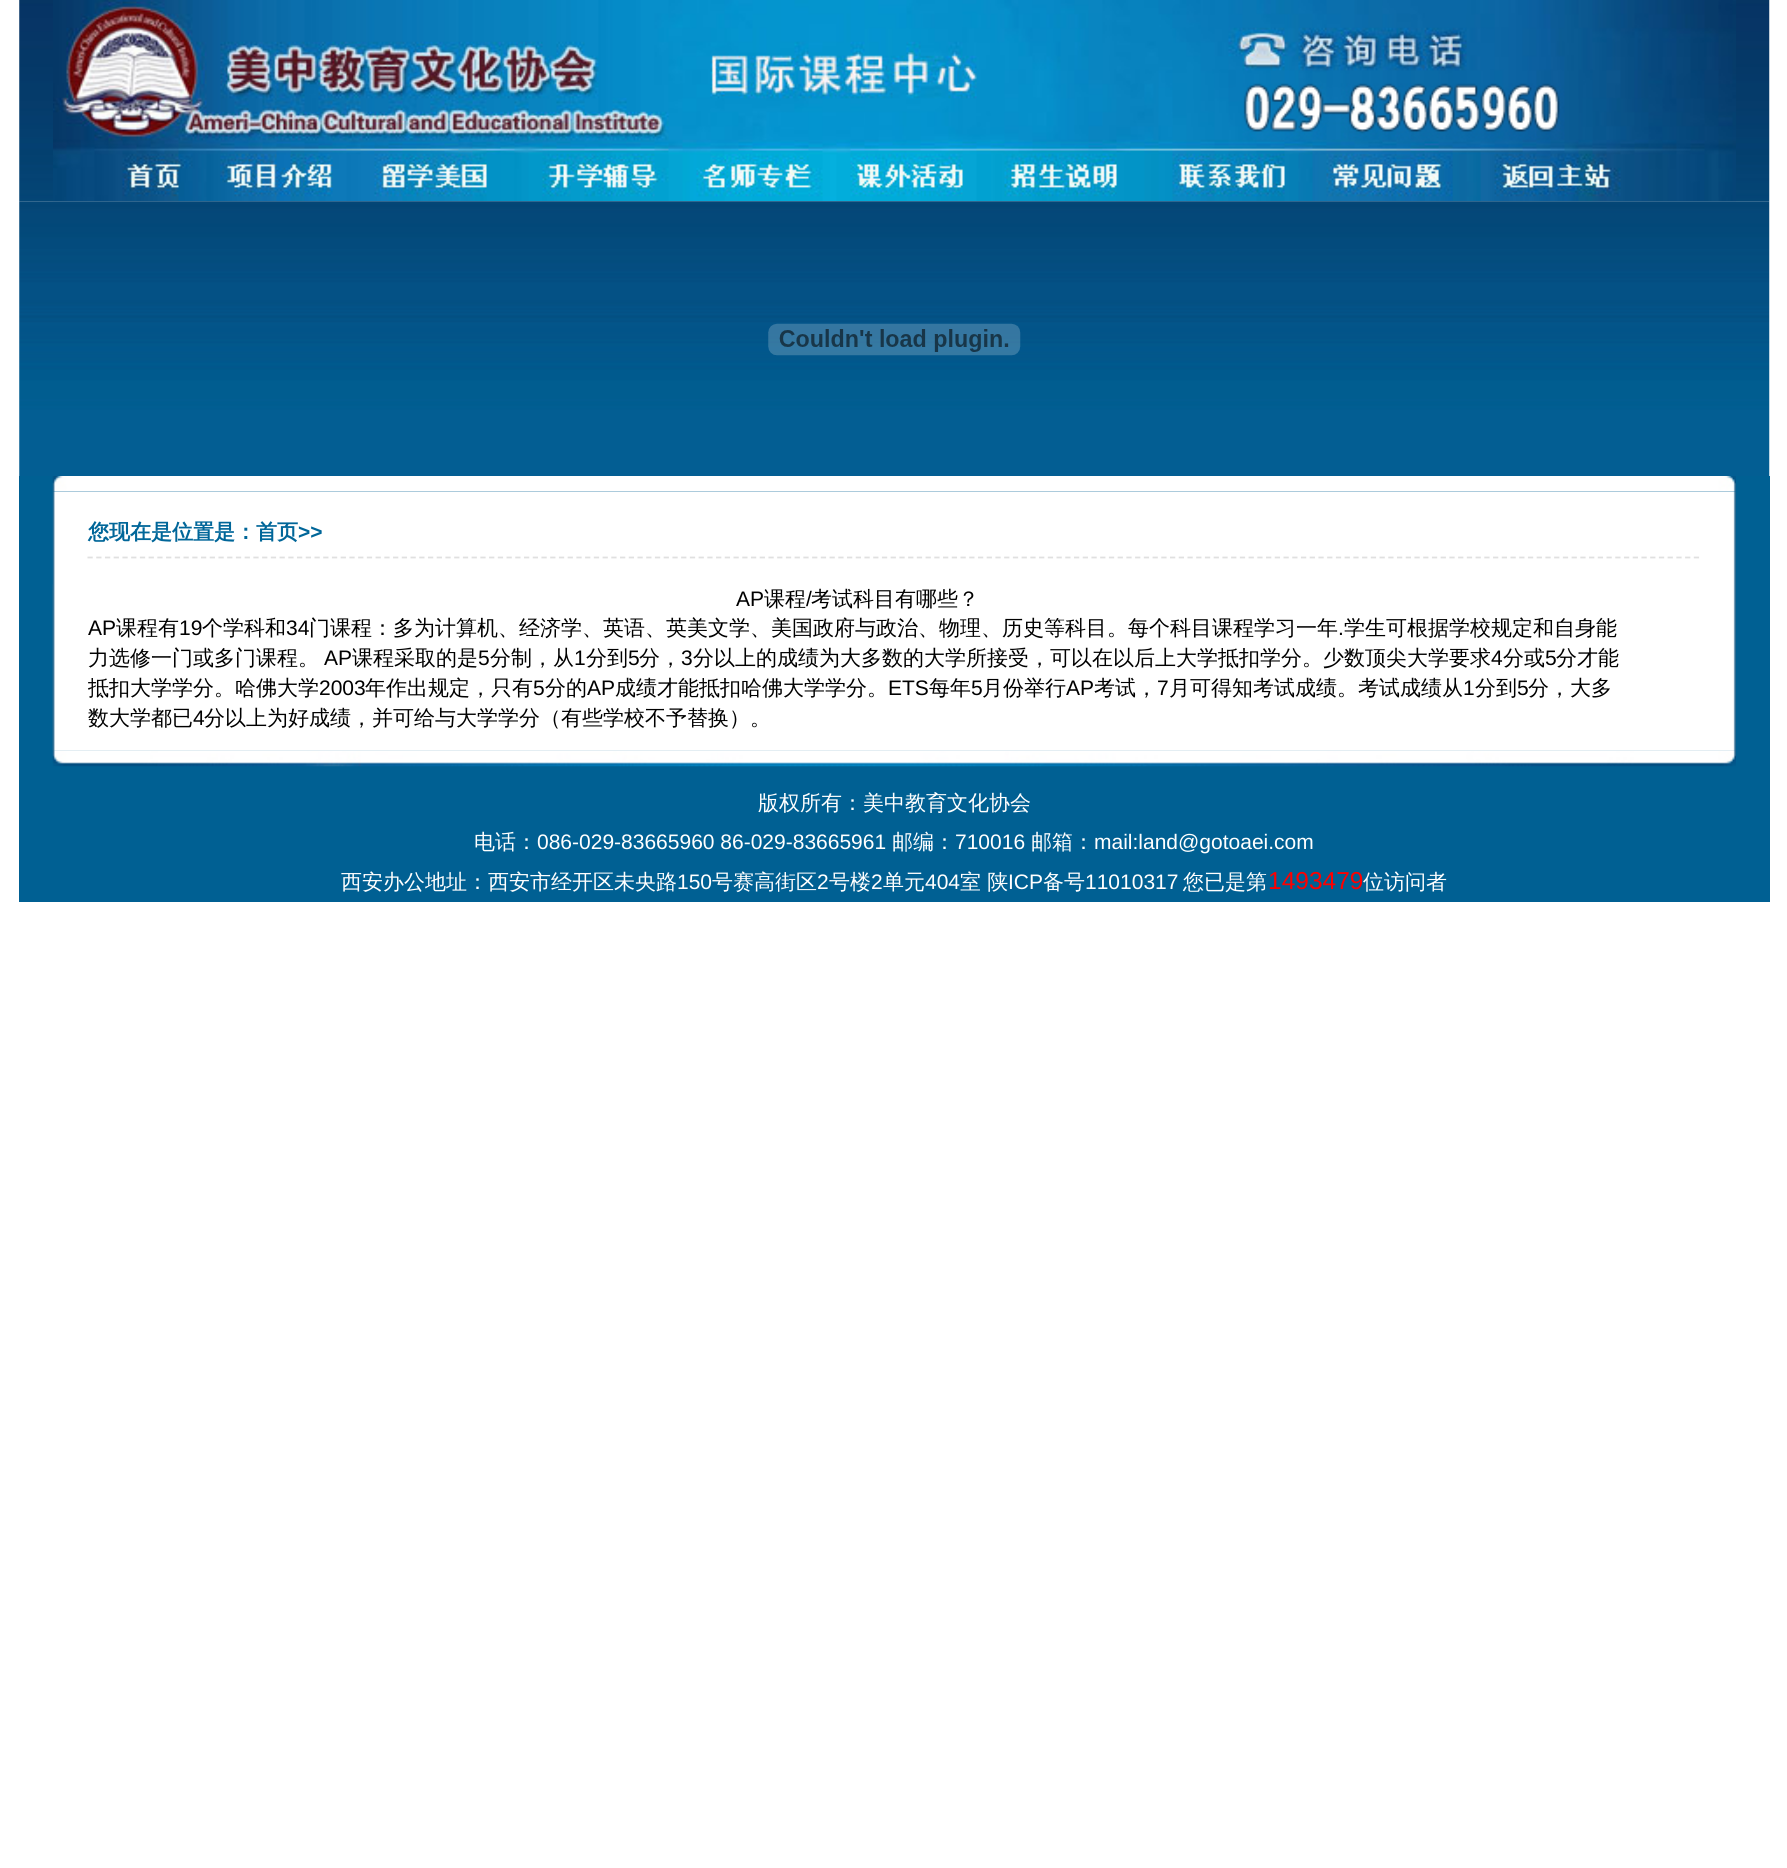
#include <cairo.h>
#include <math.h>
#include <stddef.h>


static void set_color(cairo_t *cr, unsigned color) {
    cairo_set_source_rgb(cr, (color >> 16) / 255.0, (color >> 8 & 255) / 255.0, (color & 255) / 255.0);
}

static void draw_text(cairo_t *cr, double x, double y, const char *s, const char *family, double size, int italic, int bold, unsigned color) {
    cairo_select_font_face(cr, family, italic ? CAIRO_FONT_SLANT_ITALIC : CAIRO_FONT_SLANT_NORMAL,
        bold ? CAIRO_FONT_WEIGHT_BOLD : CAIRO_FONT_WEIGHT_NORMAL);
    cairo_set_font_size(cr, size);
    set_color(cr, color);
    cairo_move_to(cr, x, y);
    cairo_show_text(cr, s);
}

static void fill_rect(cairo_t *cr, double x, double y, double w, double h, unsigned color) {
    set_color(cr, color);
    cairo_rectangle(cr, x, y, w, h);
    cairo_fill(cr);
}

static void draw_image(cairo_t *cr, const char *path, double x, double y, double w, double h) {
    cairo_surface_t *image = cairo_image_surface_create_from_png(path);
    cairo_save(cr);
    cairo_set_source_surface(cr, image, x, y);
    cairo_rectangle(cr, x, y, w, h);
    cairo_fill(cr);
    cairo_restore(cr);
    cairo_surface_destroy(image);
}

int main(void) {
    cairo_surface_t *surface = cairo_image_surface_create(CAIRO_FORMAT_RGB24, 1787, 1868);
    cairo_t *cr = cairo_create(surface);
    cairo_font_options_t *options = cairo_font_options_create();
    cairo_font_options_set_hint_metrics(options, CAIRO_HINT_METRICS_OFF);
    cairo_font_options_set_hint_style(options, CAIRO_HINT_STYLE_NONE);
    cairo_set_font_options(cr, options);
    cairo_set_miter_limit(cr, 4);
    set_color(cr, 0xFFFFFF);
    cairo_paint(cr);
    draw_image(cr, "assets/img1.png", 19, 0, 1751, 202);
    draw_image(cr, "assets/img2.png", 53, 0, 1683, 202);
    draw_image(cr, "assets/img3.png", 19, 201, 1751, 275);
    draw_image(cr, "assets/img4.png", 768, 323, 253, 33);
    fill_rect(cr, 19, 476, 1751, 426, 0x006093);
    draw_image(cr, "assets/img5.png", 52, 476, 1684, 16);
    draw_image(cr, "assets/img6.png", 52, 491, 1684, 260);
    cairo_new_path(cr);
    cairo_move_to(cr, 87.5, 557.5);
    cairo_line_to(cr, 1701, 557.5);
    set_color(cr, 0xE0E0E0);
    cairo_set_line_width(cr, 1.8);
    cairo_set_dash(cr, (double[]){5.25, 3.48}, 2, 0);
    cairo_stroke(cr);
    draw_text(cr, 88, 539, "您现在是位置是：首页", "WenQuanYi Zen Hei", 21, 0, 1, 0x006699);
    draw_text(cr, 298, 539, ">>", "Liberation Sans", 21, 0, 1, 0x006699);
    draw_image(cr, "assets/img7.png", 52, 584, 1684, 167);
    draw_text(cr, 736, 606, "AP", "Liberation Sans", 21, 0, 0, 0x000000);
    draw_text(cr, 764, 606, "课程", "WenQuanYi Zen Hei Medium", 21, 0, 0, 0x000000);
    draw_text(cr, 806, 606, "/", "Liberation Sans", 21, 0, 0, 0x000000);
    draw_text(cr, 811, 606, "考试科目有哪些？", "WenQuanYi Zen Hei Medium", 21, 0, 0, 0x000000);
    draw_text(cr, 88, 635, "AP", "Liberation Sans", 21, 0, 0, 0x000000);
    draw_text(cr, 116, 635, "课程有", "WenQuanYi Zen Hei Medium", 21, 0, 0, 0x000000);
    draw_text(cr, 179, 635, "19", "Liberation Sans", 21, 0, 0, 0x000000);
    draw_text(cr, 202, 635, "个学科和", "WenQuanYi Zen Hei Medium", 21, 0, 0, 0x000000);
    draw_text(cr, 286, 635, "34", "Liberation Sans", 21, 0, 0, 0x000000);
    draw_text(cr, 309, 635, "门课程：多为计算机、经济学、英语、英美文学、美国政府与政治、物理、历史等科目。每个科目课程学习一年", "WenQuanYi Zen Hei Medium", 21, 0, 0, 0x000000);
    draw_text(cr, 1338, 635, ".", "Liberation Sans", 21, 0, 0, 0x000000);
    draw_text(cr, 1344, 635, "学生可根据学校规定和自身能", "WenQuanYi Zen Hei Medium", 21, 0, 0, 0x000000);
    draw_text(cr, 88, 665, "力选修一门或多门课程。", "WenQuanYi Zen Hei Medium", 21, 0, 0, 0x000000);
    draw_text(cr, 324, 665, "AP", "Liberation Sans", 21, 0, 0, 0x000000);
    draw_text(cr, 352, 665, "课程采取的是", "WenQuanYi Zen Hei Medium", 21, 0, 0, 0x000000);
    draw_text(cr, 478, 665, "5", "Liberation Sans", 21, 0, 0, 0x000000);
    draw_text(cr, 490, 665, "分制，从", "WenQuanYi Zen Hei Medium", 21, 0, 0, 0x000000);
    draw_text(cr, 574, 665, "1", "Liberation Sans", 21, 0, 0, 0x000000);
    draw_text(cr, 586, 665, "分到", "WenQuanYi Zen Hei Medium", 21, 0, 0, 0x000000);
    draw_text(cr, 628, 665, "5", "Liberation Sans", 21, 0, 0, 0x000000);
    draw_text(cr, 639, 665, "分，", "WenQuanYi Zen Hei Medium", 21, 0, 0, 0x000000);
    draw_text(cr, 681, 665, "3", "Liberation Sans", 21, 0, 0, 0x000000);
    draw_text(cr, 693, 665, "分以上的成绩为大多数的大学所接受，可以在以后上大学抵扣学分。少数顶尖大学要求", "WenQuanYi Zen Hei Medium", 21, 0, 0, 0x000000);
    draw_text(cr, 1491, 665, "4", "Liberation Sans", 21, 0, 0, 0x000000);
    draw_text(cr, 1503, 665, "分或", "WenQuanYi Zen Hei Medium", 21, 0, 0, 0x000000);
    draw_text(cr, 1545, 665, "5", "Liberation Sans", 21, 0, 0, 0x000000);
    draw_text(cr, 1556, 665, "分才能", "WenQuanYi Zen Hei Medium", 21, 0, 0, 0x000000);
    draw_text(cr, 88, 695, "抵扣大学学分。哈佛大学", "WenQuanYi Zen Hei Medium", 21, 0, 0, 0x000000);
    draw_text(cr, 319, 695, "2003", "Liberation Sans", 21, 0, 0, 0x000000);
    draw_text(cr, 365, 695, "年作出规定，只有", "WenQuanYi Zen Hei Medium", 21, 0, 0, 0x000000);
    draw_text(cr, 533, 695, "5", "Liberation Sans", 21, 0, 0, 0x000000);
    draw_text(cr, 545, 695, "分的", "WenQuanYi Zen Hei Medium", 21, 0, 0, 0x000000);
    draw_text(cr, 587, 695, "AP", "Liberation Sans", 21, 0, 0, 0x000000);
    draw_text(cr, 615, 695, "成绩才能抵扣哈佛大学学分。", "WenQuanYi Zen Hei Medium", 21, 0, 0, 0x000000);
    draw_text(cr, 888, 695, "ETS", "Liberation Sans", 21, 0, 0, 0x000000);
    draw_text(cr, 929, 695, "每年", "WenQuanYi Zen Hei Medium", 21, 0, 0, 0x000000);
    draw_text(cr, 971, 695, "5", "Liberation Sans", 21, 0, 0, 0x000000);
    draw_text(cr, 982, 695, "月份举行", "WenQuanYi Zen Hei Medium", 21, 0, 0, 0x000000);
    draw_text(cr, 1066, 695, "AP", "Liberation Sans", 21, 0, 0, 0x000000);
    draw_text(cr, 1094, 695, "考试，", "WenQuanYi Zen Hei Medium", 21, 0, 0, 0x000000);
    draw_text(cr, 1157, 695, "7", "Liberation Sans", 21, 0, 0, 0x000000);
    draw_text(cr, 1169, 695, "月可得知考试成绩。考试成绩从", "WenQuanYi Zen Hei Medium", 21, 0, 0, 0x000000);
    draw_text(cr, 1463, 695, "1", "Liberation Sans", 21, 0, 0, 0x000000);
    draw_text(cr, 1475, 695, "分到", "WenQuanYi Zen Hei Medium", 21, 0, 0, 0x000000);
    draw_text(cr, 1517, 695, "5", "Liberation Sans", 21, 0, 0, 0x000000);
    draw_text(cr, 1528, 695, "分，大多", "WenQuanYi Zen Hei Medium", 21, 0, 0, 0x000000);
    draw_text(cr, 88, 725, "数大学都已", "WenQuanYi Zen Hei Medium", 21, 0, 0, 0x000000);
    draw_text(cr, 193, 725, "4", "Liberation Sans", 21, 0, 0, 0x000000);
    draw_text(cr, 204, 725, "分以上为好成绩，并可给与大学学分（有些学校不予替换）。", "WenQuanYi Zen Hei Medium", 21, 0, 0, 0x000000);
    draw_image(cr, "assets/img8.png", 52, 751, 1684, 16);
    draw_text(cr, 758, 810, "版权所有：美中教育文化协会", "WenQuanYi Zen Hei Medium", 21, 0, 0, 0xFFFFFF);
    draw_text(cr, 474, 849, "电话：", "WenQuanYi Zen Hei Medium", 21, 0, 0, 0xFFFFFF);
    draw_text(cr, 537, 849, "086-029-83665960 86-029-83665961", "Liberation Sans", 21, 0, 0, 0xFFFFFF);
    draw_text(cr, 892, 849, "邮编：", "WenQuanYi Zen Hei Medium", 21, 0, 0, 0xFFFFFF);
    draw_text(cr, 955, 849, "710016", "Liberation Sans", 21, 0, 0, 0xFFFFFF);
    draw_text(cr, 1031, 849, "邮箱：", "WenQuanYi Zen Hei Medium", 21, 0, 0, 0xFFFFFF);
    draw_text(cr, 1094, 849, "mail:land@gotoaei.com", "Liberation Sans", 21, 0, 0, 0xFFFFFF);
    draw_text(cr, 341, 889, "西安办公地址：西安市经开区未央路", "WenQuanYi Zen Hei Medium", 21, 0, 0, 0xFFFFFF);
    draw_text(cr, 677, 889, "150", "Liberation Sans", 21, 0, 0, 0xFFFFFF);
    draw_text(cr, 712, 889, "号赛高街区", "WenQuanYi Zen Hei Medium", 21, 0, 0, 0xFFFFFF);
    draw_text(cr, 817, 889, "2", "Liberation Sans", 21, 0, 0, 0xFFFFFF);
    draw_text(cr, 829, 889, "号楼", "WenQuanYi Zen Hei Medium", 21, 0, 0, 0xFFFFFF);
    draw_text(cr, 871, 889, "2", "Liberation Sans", 21, 0, 0, 0xFFFFFF);
    draw_text(cr, 883, 889, "单元", "WenQuanYi Zen Hei Medium", 21, 0, 0, 0xFFFFFF);
    draw_text(cr, 925, 889, "404", "Liberation Sans", 21, 0, 0, 0xFFFFFF);
    draw_text(cr, 960, 889, "室 陕", "WenQuanYi Zen Hei Medium", 21, 0, 0, 0xFFFFFF);
    draw_text(cr, 1008, 889, "ICP", "Liberation Sans", 21, 0, 0, 0xFFFFFF);
    draw_text(cr, 1043, 889, "备号", "WenQuanYi Zen Hei Medium", 21, 0, 0, 0xFFFFFF);
    draw_text(cr, 1085, 889, "11010317", "Liberation Sans", 21, 0, 0, 0xFFFFFF);
    draw_text(cr, 1183, 889, "您已是第", "WenQuanYi Zen Hei Medium", 21, 0, 0, 0xFFFFFF);
    draw_text(cr, 1268, 889, "1493479", "Liberation Sans", 24.5, 0, 0, 0xFF0000);
    draw_text(cr, 1363, 889, "位访问者", "WenQuanYi Zen Hei Medium", 21, 0, 0, 0xFFFFFF);
    cairo_surface_write_to_png(surface, "output.png");
    cairo_font_options_destroy(options);
    cairo_destroy(cr);
    cairo_surface_destroy(surface);
    return 0;
}
